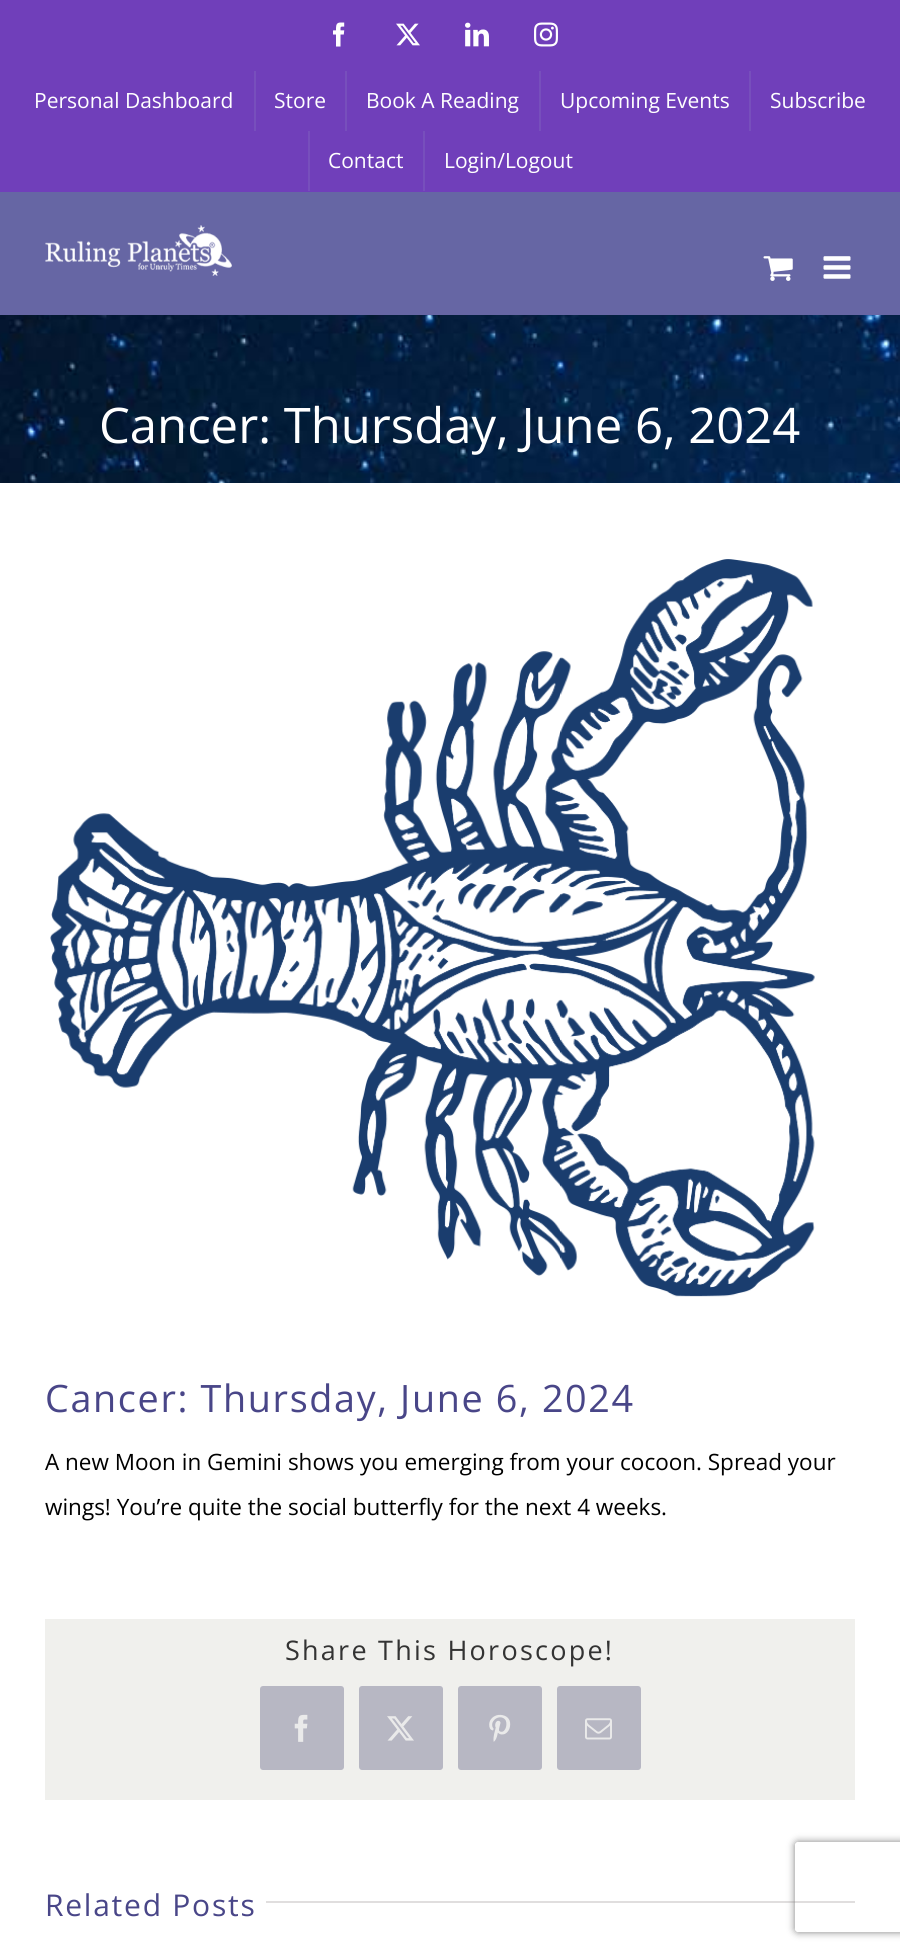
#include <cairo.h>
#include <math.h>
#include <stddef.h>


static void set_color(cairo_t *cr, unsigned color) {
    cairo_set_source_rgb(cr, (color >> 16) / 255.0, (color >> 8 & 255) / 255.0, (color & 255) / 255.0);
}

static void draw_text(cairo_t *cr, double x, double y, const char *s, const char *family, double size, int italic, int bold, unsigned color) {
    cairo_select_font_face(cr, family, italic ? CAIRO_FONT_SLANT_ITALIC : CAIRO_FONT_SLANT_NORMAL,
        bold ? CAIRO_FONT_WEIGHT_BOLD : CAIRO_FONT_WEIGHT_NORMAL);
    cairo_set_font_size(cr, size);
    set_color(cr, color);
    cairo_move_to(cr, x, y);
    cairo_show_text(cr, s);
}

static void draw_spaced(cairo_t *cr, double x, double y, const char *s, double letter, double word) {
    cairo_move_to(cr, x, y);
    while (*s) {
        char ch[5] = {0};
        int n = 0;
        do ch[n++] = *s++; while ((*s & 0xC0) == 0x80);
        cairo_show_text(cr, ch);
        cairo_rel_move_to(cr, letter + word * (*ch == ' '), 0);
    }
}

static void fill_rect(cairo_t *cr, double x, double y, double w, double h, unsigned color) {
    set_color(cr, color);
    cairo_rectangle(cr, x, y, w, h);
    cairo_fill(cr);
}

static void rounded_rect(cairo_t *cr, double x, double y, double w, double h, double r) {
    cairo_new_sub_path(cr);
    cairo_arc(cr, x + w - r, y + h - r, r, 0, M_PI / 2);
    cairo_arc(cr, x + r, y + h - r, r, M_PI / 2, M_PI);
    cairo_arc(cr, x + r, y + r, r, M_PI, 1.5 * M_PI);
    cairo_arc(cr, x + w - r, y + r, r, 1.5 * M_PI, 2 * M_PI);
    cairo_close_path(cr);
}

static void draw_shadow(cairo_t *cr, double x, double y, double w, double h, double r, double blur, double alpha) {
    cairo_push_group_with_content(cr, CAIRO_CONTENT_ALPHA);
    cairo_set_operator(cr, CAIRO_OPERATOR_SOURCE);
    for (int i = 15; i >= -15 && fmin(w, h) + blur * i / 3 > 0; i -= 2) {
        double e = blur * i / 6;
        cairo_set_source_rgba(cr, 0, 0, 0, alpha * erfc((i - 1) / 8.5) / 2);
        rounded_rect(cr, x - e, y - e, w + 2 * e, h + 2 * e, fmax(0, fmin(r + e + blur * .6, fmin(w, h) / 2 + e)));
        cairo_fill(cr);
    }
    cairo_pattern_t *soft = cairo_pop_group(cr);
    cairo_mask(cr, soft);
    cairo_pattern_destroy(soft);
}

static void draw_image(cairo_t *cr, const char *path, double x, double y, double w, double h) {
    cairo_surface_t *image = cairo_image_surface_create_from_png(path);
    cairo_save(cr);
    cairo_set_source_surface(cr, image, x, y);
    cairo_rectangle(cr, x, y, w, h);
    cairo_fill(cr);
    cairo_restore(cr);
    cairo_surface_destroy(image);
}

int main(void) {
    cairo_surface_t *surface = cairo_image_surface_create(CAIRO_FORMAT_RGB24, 900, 1953);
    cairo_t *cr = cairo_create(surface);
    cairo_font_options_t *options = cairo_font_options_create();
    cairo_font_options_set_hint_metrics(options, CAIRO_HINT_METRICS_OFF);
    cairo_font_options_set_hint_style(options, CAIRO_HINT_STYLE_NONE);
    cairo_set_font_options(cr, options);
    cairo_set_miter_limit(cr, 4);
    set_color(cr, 0xFFFFFF);
    cairo_paint(cr);
    fill_rect(cr, 0, 0, 900, 192, 0x703FBA);
    draw_image(cr, "assets/img1.png", 333, 22, 12, 25);
    draw_image(cr, "assets/img2.png", 396, 23, 24, 23);
    draw_image(cr, "assets/img3.png", 465, 22, 24, 25);
    draw_image(cr, "assets/img4.png", 534, 22, 24, 25);
    draw_text(cr, 34, 108, "Personal Dashboard", "Open Sans", 21, 0, 0, 0xFFFFFF);
    fill_rect(cr, 254, 71, 2, 60, 0x774FBC);
    draw_text(cr, 274, 108, "Store", "Open Sans", 21, 0, 0, 0xFFFFFF);
    fill_rect(cr, 345, 71, 2, 60, 0x774FBC);
    draw_text(cr, 366, 108, "Book A Reading", "Open Sans", 21, 0, 0, 0xFFFFFF);
    fill_rect(cr, 539, 71, 2, 60, 0x774FBC);
    draw_text(cr, 560, 108, "Upcoming Events", "Open Sans", 21, 0, 0, 0xFFFFFF);
    fill_rect(cr, 749, 71, 2, 60, 0x774FBC);
    draw_text(cr, 770, 108, "Subscribe", "Open Sans", 21, 0, 0, 0xFFFFFF);
    fill_rect(cr, 308, 131, 2, 60, 0x774FBC);
    draw_text(cr, 328, 168, "Contact", "Open Sans", 21, 0, 0, 0xFFFFFF);
    fill_rect(cr, 423, 131, 2, 60, 0x774FBC);
    draw_text(cr, 444, 168, "Login/Logout", "Open Sans", 21, 0, 0, 0xFFFFFF);
    fill_rect(cr, 0, 192, 900, 123, 0x6666A4);
    draw_image(cr, "assets/img5.png", 45, 225, 187, 51);
    draw_image(cr, "assets/img6.png", 763, 256, 30, 25);
    draw_image(cr, "assets/img7.png", 823, 256, 28, 23);
    draw_image(cr, "assets/img8.png", 0, 315, 900, 168);
    draw_text(cr, 99, 443, "Cancer: Thursday, June 6, 2024", "Open Sans", 49, 0, 0, 0xFFFFFF);
    draw_image(cr, "assets/img9.png", 50, 559, 765, 738);
    cairo_set_font_size(cr, 37.75);
    set_color(cr, 0x494688);
    draw_spaced(cr, 45, 1412, "Cancer: Thursday, June 6, 2024", 1.65, 0);
    draw_text(cr, 45, 1470, "A new Moon in Gemini shows you emerging from your cocoon. Spread your", "Open Sans", 22.5, 0, 0, 0x000000);
    draw_text(cr, 45, 1515, "wings! You’re quite the social butterfly for the next 4 weeks.", "Open Sans", 22.5, 0, 0, 0x000000);
    fill_rect(cr, 45, 1619, 810, 181, 0xF0F0ED);
    cairo_set_font_size(cr, 27);
    set_color(cr, 0x333333);
    draw_spaced(cr, 285, 1660, "Share This Horoscope!", 2.25, 0);
    set_color(cr, 0xB7B7C3);
    rounded_rect(cr, 261, 1687, 82, 82, 2);
    cairo_fill_preserve(cr);
    cairo_stroke(cr);
    draw_image(cr, "assets/img10.png", 294, 1714, 14, 28);
    rounded_rect(cr, 360, 1687, 82, 82, 2);
    cairo_fill_preserve(cr);
    cairo_stroke(cr);
    draw_image(cr, "assets/img11.png", 387, 1716, 27, 25);
    rounded_rect(cr, 459, 1687, 82, 82, 2);
    cairo_fill_preserve(cr);
    cairo_stroke(cr);
    draw_image(cr, "assets/img12.png", 489, 1714, 22, 28);
    rounded_rect(cr, 558, 1687, 82, 82, 2);
    cairo_fill_preserve(cr);
    cairo_stroke(cr);
    draw_image(cr, "assets/img13.png", 585, 1718, 27, 22);
    cairo_set_font_size(cr, 30);
    set_color(cr, 0x494688);
    draw_spaced(cr, 45, 1916, "Related Posts", 1.75, 0);
    fill_rect(cr, 266, 1901, 589, 2, 0xE0DEDE);
    cairo_save(cr);
    cairo_set_fill_rule(cr, CAIRO_FILL_RULE_EVEN_ODD);
    cairo_new_path(cr);
    cairo_move_to(cr, 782, 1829);
    cairo_line_to(cr, 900, 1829);
    cairo_line_to(cr, 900, 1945);
    cairo_line_to(cr, 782, 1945);
    cairo_close_path(cr);
    cairo_move_to(cr, 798, 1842);
    cairo_line_to(cr, 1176, 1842);
    cairo_curve_to(cr, 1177.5, 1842, 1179, 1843.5, 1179, 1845);
    cairo_line_to(cr, 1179, 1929);
    cairo_curve_to(cr, 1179, 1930.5, 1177.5, 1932, 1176, 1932);
    cairo_line_to(cr, 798, 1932);
    cairo_curve_to(cr, 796.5, 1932, 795, 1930.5, 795, 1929);
    cairo_line_to(cr, 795, 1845);
    cairo_curve_to(cr, 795, 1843.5, 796.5, 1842, 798, 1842);
    cairo_close_path(cr);
    cairo_clip(cr);
    set_color(cr, 0x808080);
    draw_shadow(cr, 795, 1842, 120, 90, 3, 4, 1);
    cairo_restore(cr);
    cairo_surface_write_to_png(surface, "output.png");
    cairo_font_options_destroy(options);
    cairo_destroy(cr);
    cairo_surface_destroy(surface);
    return 0;
}
